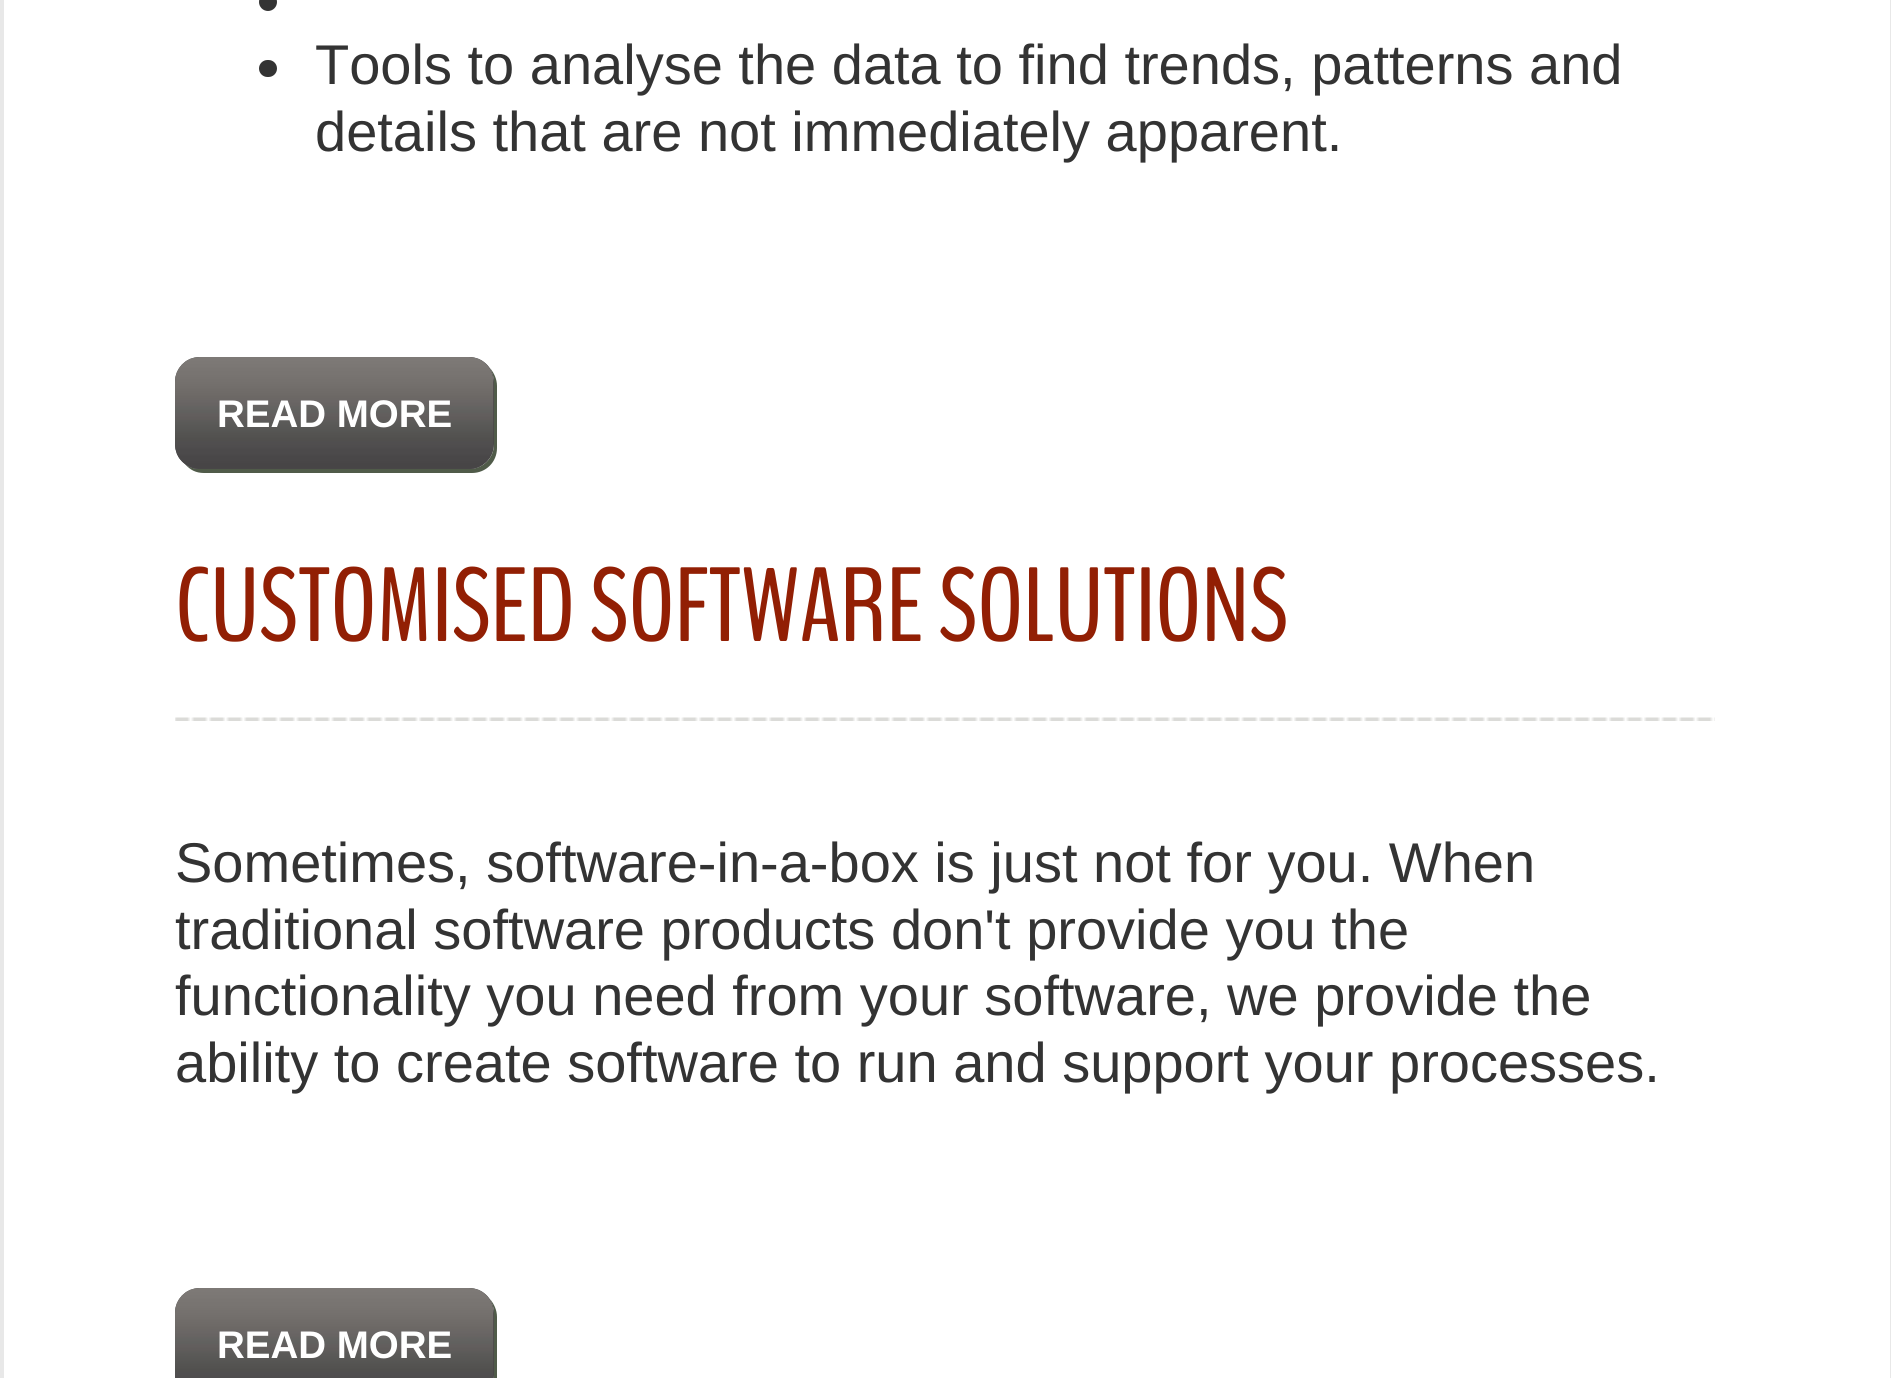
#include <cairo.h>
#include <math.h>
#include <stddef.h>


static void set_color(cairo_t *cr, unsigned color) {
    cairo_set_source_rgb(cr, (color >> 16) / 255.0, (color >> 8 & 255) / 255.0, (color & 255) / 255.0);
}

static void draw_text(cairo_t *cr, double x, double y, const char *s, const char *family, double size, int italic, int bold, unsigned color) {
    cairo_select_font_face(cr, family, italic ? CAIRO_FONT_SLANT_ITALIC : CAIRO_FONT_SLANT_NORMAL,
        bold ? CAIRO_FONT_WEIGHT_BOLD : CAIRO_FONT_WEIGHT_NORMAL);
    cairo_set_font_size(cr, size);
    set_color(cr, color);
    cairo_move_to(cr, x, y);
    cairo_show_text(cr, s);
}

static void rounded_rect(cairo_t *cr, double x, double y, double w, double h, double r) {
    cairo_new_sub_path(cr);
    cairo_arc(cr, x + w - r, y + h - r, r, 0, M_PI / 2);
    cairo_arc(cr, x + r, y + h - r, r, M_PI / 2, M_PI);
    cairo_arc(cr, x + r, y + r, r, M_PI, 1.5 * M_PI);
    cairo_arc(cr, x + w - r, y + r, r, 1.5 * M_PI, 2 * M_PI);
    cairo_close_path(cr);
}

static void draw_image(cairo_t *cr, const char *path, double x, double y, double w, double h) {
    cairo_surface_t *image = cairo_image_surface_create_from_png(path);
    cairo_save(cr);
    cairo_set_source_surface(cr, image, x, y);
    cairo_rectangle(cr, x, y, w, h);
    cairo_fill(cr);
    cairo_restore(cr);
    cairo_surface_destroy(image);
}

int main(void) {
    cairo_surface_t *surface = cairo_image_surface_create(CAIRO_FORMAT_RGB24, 1891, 1378);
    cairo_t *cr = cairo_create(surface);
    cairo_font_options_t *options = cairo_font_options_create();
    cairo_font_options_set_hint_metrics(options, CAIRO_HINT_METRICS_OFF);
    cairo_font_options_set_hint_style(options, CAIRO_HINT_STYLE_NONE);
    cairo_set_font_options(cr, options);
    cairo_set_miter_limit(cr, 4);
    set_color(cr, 0xFFFFFF);
    cairo_paint(cr);
    cairo_rectangle(cr, 2, -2, 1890, 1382);
    set_color(cr, 0xE8E8E8);
    cairo_set_line_width(cr, 4);
    cairo_stroke(cr);
    set_color(cr, 0x333333);
    cairo_arc(cr, 268, 2, 9, 0, 2 * M_PI);
    cairo_fill(cr);
    rounded_rect(cr, 259, 60, 18, 17, 8.5);
    cairo_fill(cr);
    draw_text(cr, 315, 84, "Tools to analyse the data to find trends, patterns and", "Liberation Sans", 56, 0, 0, 0x333333);
    draw_text(cr, 315, 151, "details that are not immediately apparent.", "Liberation Sans", 56, 0, 0, 0x333333);
    set_color(cr, 0x505B49);
    cairo_new_path(cr);
    cairo_move_to(cr, 185, 464);
    cairo_curve_to(cr, 190, 470, 196, 473, 204, 473);
    cairo_line_to(cr, 472, 473);
    cairo_curve_to(cr, 486, 473, 497, 462, 497, 448);
    cairo_line_to(cr, 497, 386);
    cairo_curve_to(cr, 497, 379, 494, 373, 490, 368);
    cairo_curve_to(cr, 492, 372, 494, 377, 494, 382);
    cairo_line_to(cr, 494, 444);
    cairo_curve_to(cr, 494, 458, 483, 469, 469, 469);
    cairo_line_to(cr, 200, 469);
    cairo_curve_to(cr, 194, 469, 189, 467, 185, 464);
    cairo_close_path(cr);
    cairo_fill(cr);
    set_color(cr, 0x484646);
    rounded_rect(cr, 175, 357, 319, 112, 25);
    cairo_fill(cr);
    draw_image(cr, "assets/img1.png", 175, 357, 319, 112);
    draw_text(cr, 217, 427, "READ MORE", "Liberation Sans", 38.5, 0, 1, 0xFFFFFF);
    draw_image(cr, "assets/img2.png", 175, 717, 1540, 4);
    draw_text(cr, 175, 641, "CUSTOMISED SOFTWARE SOLUTIONS", "BenchNine", 105, 0, 0, 0x921F04);
    draw_text(cr, 175, 882, "Sometimes, software-in-a-box is just not for you. When", "Liberation Sans", 56, 0, 0, 0x333333);
    draw_text(cr, 175, 949, "traditional software products don't provide you the", "Liberation Sans", 56, 0, 0, 0x333333);
    draw_text(cr, 175, 1015, "functionality you need from your software, we provide the", "Liberation Sans", 56, 0, 0, 0x333333);
    draw_text(cr, 175, 1082, "ability to create software to run and support your processes.", "Liberation Sans", 56, 0, 0, 0x333333);
    set_color(cr, 0x505B49);
    cairo_new_path(cr);
    cairo_move_to(cr, 185, 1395);
    cairo_curve_to(cr, 190, 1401, 196, 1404, 204, 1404);
    cairo_line_to(cr, 472, 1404);
    cairo_curve_to(cr, 486, 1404, 497, 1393, 497, 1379);
    cairo_line_to(cr, 497, 1317);
    cairo_curve_to(cr, 497, 1310, 494, 1304, 490, 1299);
    cairo_curve_to(cr, 492, 1303, 494, 1308, 494, 1312);
    cairo_line_to(cr, 494, 1376);
    cairo_curve_to(cr, 494, 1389, 483, 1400, 469, 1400);
    cairo_line_to(cr, 200, 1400);
    cairo_curve_to(cr, 194, 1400, 189, 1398, 185, 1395);
    cairo_close_path(cr);
    cairo_fill(cr);
    set_color(cr, 0x484646);
    rounded_rect(cr, 175, 1288, 319, 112, 25);
    cairo_fill(cr);
    draw_image(cr, "assets/img3.png", 175, 1288, 319, 90);
    draw_text(cr, 217, 1358, "READ MORE", "Liberation Sans", 38.5, 0, 1, 0xFFFFFF);
    cairo_surface_write_to_png(surface, "output.png");
    cairo_font_options_destroy(options);
    cairo_destroy(cr);
    cairo_surface_destroy(surface);
    return 0;
}
